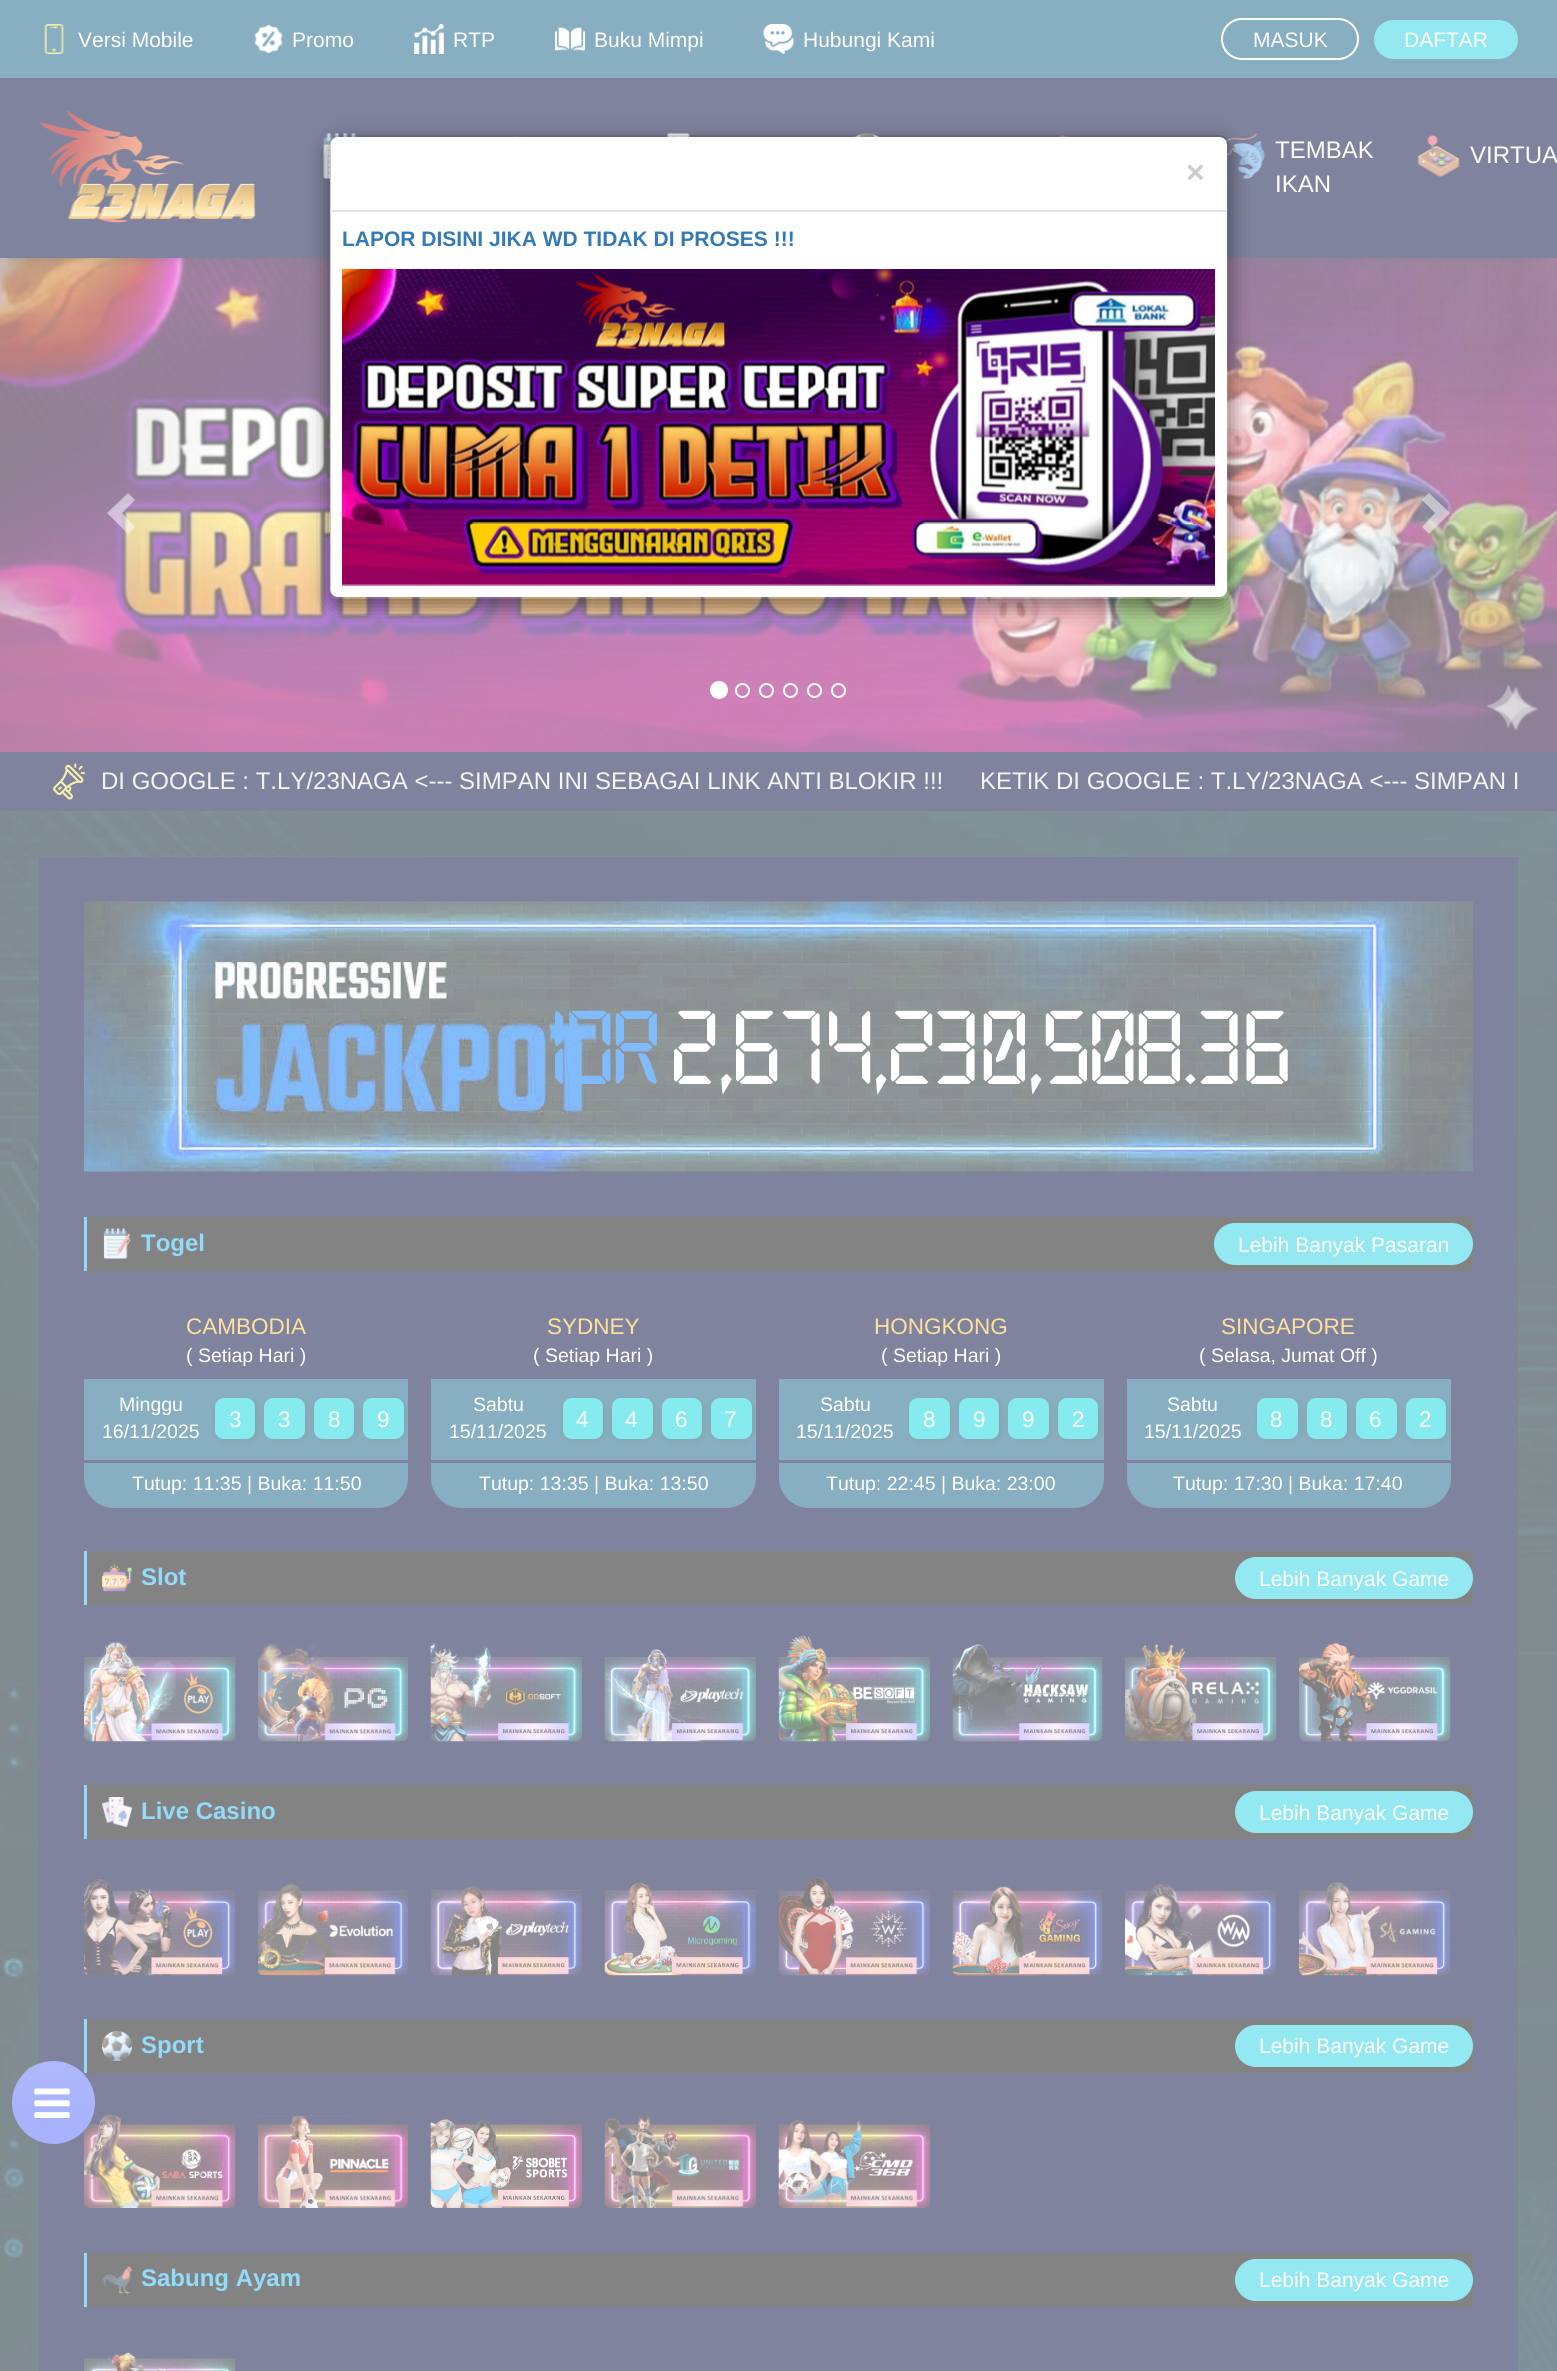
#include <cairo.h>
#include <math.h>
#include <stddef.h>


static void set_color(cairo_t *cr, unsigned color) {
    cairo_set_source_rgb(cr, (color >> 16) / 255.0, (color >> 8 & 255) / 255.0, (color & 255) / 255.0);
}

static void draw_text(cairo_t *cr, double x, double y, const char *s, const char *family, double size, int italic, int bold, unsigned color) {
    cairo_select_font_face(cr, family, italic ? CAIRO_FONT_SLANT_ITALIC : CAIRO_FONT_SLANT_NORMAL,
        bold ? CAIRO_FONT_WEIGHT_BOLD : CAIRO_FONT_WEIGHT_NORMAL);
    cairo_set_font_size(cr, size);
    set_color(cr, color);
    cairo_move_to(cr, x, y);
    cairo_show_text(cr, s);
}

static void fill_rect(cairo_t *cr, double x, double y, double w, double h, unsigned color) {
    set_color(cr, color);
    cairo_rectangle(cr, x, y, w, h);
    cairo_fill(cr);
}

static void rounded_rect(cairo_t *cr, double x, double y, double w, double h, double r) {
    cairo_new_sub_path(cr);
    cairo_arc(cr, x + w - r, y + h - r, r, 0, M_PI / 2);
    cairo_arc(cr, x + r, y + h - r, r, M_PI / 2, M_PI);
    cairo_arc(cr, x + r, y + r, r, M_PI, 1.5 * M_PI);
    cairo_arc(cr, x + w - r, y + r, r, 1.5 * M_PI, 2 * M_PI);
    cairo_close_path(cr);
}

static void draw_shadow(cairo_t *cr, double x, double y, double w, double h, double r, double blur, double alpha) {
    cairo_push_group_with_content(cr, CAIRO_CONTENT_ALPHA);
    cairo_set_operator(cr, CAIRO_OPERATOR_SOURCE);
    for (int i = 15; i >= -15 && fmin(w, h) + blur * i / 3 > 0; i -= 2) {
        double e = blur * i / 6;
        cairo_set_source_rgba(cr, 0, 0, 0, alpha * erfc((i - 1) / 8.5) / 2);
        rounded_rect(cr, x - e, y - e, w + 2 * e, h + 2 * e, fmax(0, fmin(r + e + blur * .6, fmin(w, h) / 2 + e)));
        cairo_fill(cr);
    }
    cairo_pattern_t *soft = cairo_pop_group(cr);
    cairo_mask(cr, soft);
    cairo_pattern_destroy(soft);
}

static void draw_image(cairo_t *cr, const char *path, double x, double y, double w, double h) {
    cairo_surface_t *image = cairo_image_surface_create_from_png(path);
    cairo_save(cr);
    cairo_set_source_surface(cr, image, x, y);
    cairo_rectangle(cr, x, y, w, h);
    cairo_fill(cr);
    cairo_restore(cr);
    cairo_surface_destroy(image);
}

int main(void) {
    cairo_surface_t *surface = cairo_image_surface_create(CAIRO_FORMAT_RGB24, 1557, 2371);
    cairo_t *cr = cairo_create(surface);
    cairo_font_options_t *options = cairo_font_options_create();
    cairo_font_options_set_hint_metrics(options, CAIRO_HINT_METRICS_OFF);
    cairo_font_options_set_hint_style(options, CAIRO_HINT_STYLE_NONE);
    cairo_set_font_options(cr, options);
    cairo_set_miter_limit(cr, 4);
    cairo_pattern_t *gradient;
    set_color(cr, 0x80839D);
    cairo_paint(cr);
    draw_image(cr, "assets/img15.png", 0, 258, 1557, 494);
    gradient = cairo_pattern_create_linear(1323, 503, 1557, 503);
    cairo_pattern_add_color_stop_rgba(gradient, 0, 0.502, 0.502, 0.502, 0);
    cairo_pattern_add_color_stop_rgba(gradient, 1, 0.502, 0.502, 0.502, 0.25);
    cairo_set_source(cr, gradient);
    cairo_pattern_destroy(gradient);
    cairo_rectangle(cr, 1343, 258, 214, 494);
    cairo_fill(cr);
    set_color(cr, 0x808080);
    draw_shadow(cr, 9, 18, 1539, 240, 0, 4.5, 0.5);
    fill_rect(cr, 0, 0, 1557, 78, 0x88AFC1);
    draw_image(cr, "assets/img1.png", 44, 24, 20, 30);
    draw_text(cr, 78, 47, "Versi Mobile", "Liberation Sans", 21, 0, 0, 0xFFFFFF);
    draw_image(cr, "assets/img2.png", 254, 25, 29, 29);
    draw_text(cr, 292, 47, "Promo", "Liberation Sans", 21, 0, 0, 0xFFFFFF);
    draw_image(cr, "assets/img3.png", 414, 24, 30, 30);
    draw_text(cr, 453, 47, "RTP", "Liberation Sans", 21, 0, 0, 0xFFFFFF);
    draw_image(cr, "assets/img4.png", 555, 27, 30, 25);
    draw_text(cr, 594, 47, "Buku Mimpi", "Liberation Sans", 21, 0, 0, 0xFFFFFF);
    draw_image(cr, "assets/img5.png", 763, 24, 31, 30);
    draw_text(cr, 803, 47, "Hubungi Kami", "Liberation Sans", 21, 0, 0, 0xFFFFFF);
    rounded_rect(cr, 1222, 19, 136, 40, 20);
    cairo_stroke(cr);
    draw_text(cr, 1253, 47, "MASUK", "Liberation Sans", 21, 0, 0, 0xFFFFFF);
    set_color(cr, 0x94E8F1);
    rounded_rect(cr, 1374, 20, 144, 39, 19.5);
    cairo_fill(cr);
    draw_text(cr, 1404, 47, "DAFTAR", "Liberation Sans", 21, 0, 0, 0xFFFFFF);
    fill_rect(cr, 5, 78, 1547, 180, 0x80839D);
    draw_image(cr, "assets/img6.png", 40, 110, 216, 113);
    draw_image(cr, "assets/img7.png", 323, 133, 33, 46);
    draw_image(cr, "assets/img8.png", 515, 136, 3, 1);
    draw_image(cr, "assets/img9.png", 667, 133, 23, 4);
    draw_image(cr, "assets/img10.png", 854, 133, 26, 4);
    draw_image(cr, "assets/img11.png", 1060, 134, 7, 3);
    draw_image(cr, "assets/img12.png", 1225, 133, 40, 46);
    draw_text(cr, 1275, 158, "TEMBAK", "Liberation Sans", 24, 0, 0, 0xFFFFFF);
    draw_text(cr, 1275, 192, "IKAN", "Liberation Sans", 24, 0, 0, 0xFFFFFF);
    draw_image(cr, "assets/img13.png", 1417, 135, 43, 42);
    draw_text(cr, 1470, 163, "VIRTUA", "Liberation Sans", 24, 0, 0, 0xFFFFFF);
    cairo_save(cr);
    cairo_set_fill_rule(cr, CAIRO_FILL_RULE_EVEN_ODD);
    cairo_new_path(cr);
    cairo_move_to(cr, 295, 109);
    cairo_line_to(cr, 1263, 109);
    cairo_line_to(cr, 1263, 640);
    cairo_line_to(cr, 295, 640);
    cairo_close_path(cr);
    cairo_move_to(cr, 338, 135);
    cairo_line_to(cr, 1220, 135);
    cairo_curve_to(cr, 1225, 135, 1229, 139, 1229, 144);
    cairo_line_to(cr, 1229, 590);
    cairo_curve_to(cr, 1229, 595, 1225, 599, 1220, 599);
    cairo_line_to(cr, 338, 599);
    cairo_curve_to(cr, 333, 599, 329, 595, 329, 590);
    cairo_line_to(cr, 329, 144);
    cairo_curve_to(cr, 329, 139, 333, 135, 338, 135);
    cairo_close_path(cr);
    cairo_clip(cr);
    set_color(cr, 0x000000);
    draw_shadow(cr, 329, 143, 900, 463, 9, 11, 0.5);
    cairo_restore(cr);
    rounded_rect(cr, 330, 137, 897, 460, 8);
    cairo_fill(cr);
    rounded_rect(cr, 330, 136, 898, 462, 8);
    cairo_set_source_rgba(cr, 0, 0, 0, 0.2);
    cairo_stroke(cr);
    fill_rect(cr, 330, 210, 897, 2, 0xE5E5E5);
    draw_text(cr, 1186, 183, "×", "Liberation Sans", 32, 0, 1, 0xCCCCCC);
    draw_text(cr, 342, 246, "LAPOR DISINI JIKA WD TIDAK DI PROSES !!!", "Liberation Sans", 21, 0, 1, 0x337AB7);
    draw_image(cr, "assets/img14.png", 342, 269, 873, 317);
    cairo_set_source_rgba(cr, 1, 1, 1, 0.5);
    cairo_new_path(cr);
    cairo_move_to(cr, 135, 500);
    cairo_line_to(cr, 122, 513);
    cairo_line_to(cr, 135, 527);
    cairo_line_to(cr, 128, 534);
    cairo_line_to(cr, 107, 513);
    cairo_line_to(cr, 128, 493);
    cairo_close_path(cr);
    cairo_fill(cr);
    cairo_new_path(cr);
    cairo_move_to(cr, 1450, 513);
    cairo_line_to(cr, 1429, 534);
    cairo_line_to(cr, 1422, 527);
    cairo_line_to(cr, 1435, 513);
    cairo_line_to(cr, 1422, 500);
    cairo_line_to(cr, 1429, 493);
    cairo_close_path(cr);
    cairo_fill(cr);
    set_color(cr, 0xFFFFFF);
    cairo_arc(cr, 719, 690, 8, 0, 2 * M_PI);
    cairo_fill_preserve(cr);
    cairo_stroke(cr);
    cairo_arc(cr, 742.5, 690.5, 6.5, 0, 2 * M_PI);
    cairo_stroke(cr);
    cairo_arc(cr, 766.5, 690.5, 6.5, 0, 2 * M_PI);
    cairo_stroke(cr);
    cairo_arc(cr, 790.5, 690.5, 6.5, 0, 2 * M_PI);
    cairo_stroke(cr);
    cairo_arc(cr, 814.5, 690.5, 6.5, 0, 2 * M_PI);
    cairo_stroke(cr);
    cairo_arc(cr, 838.5, 690.5, 6.5, 0, 2 * M_PI);
    cairo_stroke(cr);
    draw_image(cr, "assets/img16.png", 53, 763, 32, 37);
    draw_text(cr, 101, 789, "DI GOOGLE : T.LY/23NAGA <--- SIMPAN INI SEBAGAI LINK ANTI BLOKIR !!!", "Liberation Sans", 24, 0, 0, 0xF5F5F5);
    draw_text(cr, 980, 789, "KETIK DI GOOGLE : T.LY/23NAGA <--- SIMPAN I", "Liberation Sans", 24, 0, 0, 0xF5F5F5);
    draw_image(cr, "assets/img19.png", 0, 811, 1557, 1560);
    fill_rect(cr, 39, 857, 1479, 1514, 0x80839D);
    draw_image(cr, "assets/img18.png", 21, 2062, 24, 15);
    fill_rect(cr, 87, 2019, 1386, 54, 0x838383);
    fill_rect(cr, 84, 2019, 3, 54, 0x93DBFB);
    draw_image(cr, "assets/img40.png", 102, 2031, 30, 30);
    draw_image(cr, "assets/img41.png", 84, 2114, 152, 94);
    set_color(cr, 0x808080);
    draw_shadow(cr, 12, 2064, 83, 83, 41.5, 4, 0.25);
    draw_shadow(cr, 15, 2067, 68, 68, 34, 4, 0.25);
    gradient = cairo_pattern_create_linear(53, 2060, 53, 2143);
    cairo_pattern_add_color_stop_rgba(gradient, 0, 0.686, 0.722, 0.992, 1);
    cairo_pattern_add_color_stop_rgba(gradient, 1, 0.655, 0.694, 0.992, 1);
    cairo_set_source(cr, gradient);
    cairo_pattern_destroy(gradient);
    cairo_arc(cr, 53.5, 2102.5, 41.5, 0, 2 * M_PI);
    cairo_fill(cr);
    draw_image(cr, "assets/img17.png", 34, 2088, 36, 30);
    draw_image(cr, "assets/img20.png", 84, 901, 1389, 271);
    draw_text(cr, 555, 1084, "IDR", "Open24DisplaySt", 105, 0, 0, 0x80BCFB);
    draw_text(cr, 674, 1084, "2,674,230,508.36", "Open24DisplaySt", 105, 0, 0, 0xFFFFFF);
    fill_rect(cr, 87, 1217, 1386, 54, 0x838383);
    fill_rect(cr, 84, 1217, 3, 54, 0x93DBFB);
    draw_image(cr, "assets/img21.png", 103, 1228, 28, 31);
    draw_text(cr, 141, 1251, "Togel", "Liberation Sans", 24, 0, 1, 0x93DBFB);
    set_color(cr, 0x94E8F1);
    rounded_rect(cr, 1214, 1223, 259, 42, 21);
    cairo_fill(cr);
    draw_text(cr, 1238, 1252, "Lebih Banyak Pasaran", "Liberation Sans", 21, 0, 0, 0xFFFFFF);
    draw_text(cr, 186, 1334, "CAMBODIA", "Liberation Sans", 22.5, 0, 0, 0xFEE19D);
    draw_text(cr, 186, 1362, "( Setiap Hari )", "Liberation Sans", 19.5, 0, 0, 0xFFFFFF);
    fill_rect(cr, 84, 1379, 324, 81, 0x88AFC1);
    draw_text(cr, 119, 1411, "Minggu", "Liberation Sans", 19.5, 0, 0, 0xFFFFFF);
    draw_text(cr, 102, 1438, "16/11/2025", "Liberation Sans", 19.5, 0, 0, 0xFFFFFF);
    set_color(cr, 0x808080);
    draw_shadow(cr, 216, 1400, 41, 40, 9, 4, 0.3);
    set_color(cr, 0x85EBEF);
    rounded_rect(cr, 215, 1398, 40, 41, 9);
    cairo_fill(cr);
    draw_text(cr, 229, 1427, "3", "Liberation Sans", 22.5, 0, 0, 0xFFFFFF);
    set_color(cr, 0x808080);
    draw_shadow(cr, 266, 1400, 40, 40, 9, 4, 0.3);
    set_color(cr, 0x85EBEF);
    rounded_rect(cr, 264, 1398, 41, 41, 9);
    cairo_fill(cr);
    draw_text(cr, 278, 1427, "3", "Liberation Sans", 22.5, 0, 0, 0xFFFFFF);
    set_color(cr, 0x808080);
    draw_shadow(cr, 315, 1400, 41, 40, 9, 4, 0.3);
    set_color(cr, 0x85EBEF);
    rounded_rect(cr, 314, 1398, 40, 41, 9);
    cairo_fill(cr);
    draw_text(cr, 328, 1427, "8", "Liberation Sans", 22.5, 0, 0, 0xFFFFFF);
    set_color(cr, 0x808080);
    draw_shadow(cr, 365, 1400, 40, 40, 9, 4, 0.3);
    set_color(cr, 0x85EBEF);
    rounded_rect(cr, 363, 1398, 41, 41, 9);
    cairo_fill(cr);
    draw_text(cr, 377, 1427, "9", "Liberation Sans", 22.5, 0, 0, 0xFFFFFF);
    set_color(cr, 0x88AFC1);
    cairo_new_path(cr);
    cairo_move_to(cr, 84, 1463);
    cairo_line_to(cr, 408, 1463);
    cairo_line_to(cr, 408, 1478);
    cairo_curve_to(cr, 408, 1494.5, 394.5, 1508, 378, 1508);
    cairo_line_to(cr, 114, 1508);
    cairo_curve_to(cr, 97.5, 1508, 84, 1494.5, 84, 1478);
    cairo_close_path(cr);
    cairo_fill(cr);
    draw_text(cr, 132, 1490, "Tutup: 11:35 | Buka: 11:50", "Liberation Sans", 19.5, 0, 0, 0xFFFFFF);
    draw_text(cr, 547, 1334, "SYDNEY", "Liberation Sans", 22.5, 0, 0, 0xFEE19D);
    draw_text(cr, 533, 1362, "( Setiap Hari )", "Liberation Sans", 19.5, 0, 0, 0xFFFFFF);
    fill_rect(cr, 431, 1379, 325, 81, 0x88AFC1);
    draw_text(cr, 473, 1411, "Sabtu", "Liberation Sans", 19.5, 0, 0, 0xFFFFFF);
    draw_text(cr, 449, 1438, "15/11/2025", "Liberation Sans", 19.5, 0, 0, 0xFFFFFF);
    set_color(cr, 0x808080);
    draw_shadow(cr, 564, 1400, 41, 40, 9, 4, 0.3);
    set_color(cr, 0x85EBEF);
    rounded_rect(cr, 563, 1398, 40, 41, 9);
    cairo_fill(cr);
    draw_text(cr, 576, 1427, "4", "Liberation Sans", 22.5, 0, 0, 0xFFFFFF);
    set_color(cr, 0x808080);
    draw_shadow(cr, 614, 1400, 40, 40, 9, 4, 0.3);
    set_color(cr, 0x85EBEF);
    rounded_rect(cr, 612, 1398, 41, 41, 9);
    cairo_fill(cr);
    draw_text(cr, 625, 1427, "4", "Liberation Sans", 22.5, 0, 0, 0xFFFFFF);
    set_color(cr, 0x808080);
    draw_shadow(cr, 663, 1400, 41, 40, 9, 4, 0.3);
    set_color(cr, 0x85EBEF);
    rounded_rect(cr, 662, 1398, 40, 41, 9);
    cairo_fill(cr);
    draw_text(cr, 675, 1427, "6", "Liberation Sans", 22.5, 0, 0, 0xFFFFFF);
    set_color(cr, 0x808080);
    draw_shadow(cr, 713, 1400, 40, 40, 9, 4, 0.3);
    set_color(cr, 0x85EBEF);
    rounded_rect(cr, 711, 1398, 41, 41, 9);
    cairo_fill(cr);
    draw_text(cr, 724, 1427, "7", "Liberation Sans", 22.5, 0, 0, 0xFFFFFF);
    set_color(cr, 0x88AFC1);
    cairo_new_path(cr);
    cairo_move_to(cr, 431, 1463);
    cairo_line_to(cr, 756, 1463);
    cairo_line_to(cr, 756, 1478);
    cairo_curve_to(cr, 756, 1494.5, 742.5, 1508, 726, 1508);
    cairo_line_to(cr, 461, 1508);
    cairo_curve_to(cr, 444.5, 1508, 431, 1494.5, 431, 1478);
    cairo_close_path(cr);
    cairo_fill(cr);
    draw_text(cr, 479, 1490, "Tutup: 13:35 | Buka: 13:50", "Liberation Sans", 19.5, 0, 0, 0xFFFFFF);
    draw_text(cr, 874, 1334, "HONGKONG", "Liberation Sans", 22.5, 0, 0, 0xFEE19D);
    draw_text(cr, 881, 1362, "( Setiap Hari )", "Liberation Sans", 19.5, 0, 0, 0xFFFFFF);
    fill_rect(cr, 779, 1379, 325, 81, 0x88AFC1);
    draw_text(cr, 820, 1411, "Sabtu", "Liberation Sans", 19.5, 0, 0, 0xFFFFFF);
    draw_text(cr, 796, 1438, "15/11/2025", "Liberation Sans", 19.5, 0, 0, 0xFFFFFF);
    set_color(cr, 0x808080);
    draw_shadow(cr, 911, 1400, 40, 40, 9, 4, 0.3);
    set_color(cr, 0x85EBEF);
    rounded_rect(cr, 909, 1398, 41, 41, 9);
    cairo_fill(cr);
    draw_text(cr, 923, 1427, "8", "Liberation Sans", 22.5, 0, 0, 0xFFFFFF);
    set_color(cr, 0x808080);
    draw_shadow(cr, 960, 1400, 41, 40, 9, 4, 0.3);
    set_color(cr, 0x85EBEF);
    rounded_rect(cr, 959, 1398, 40, 41, 9);
    cairo_fill(cr);
    draw_text(cr, 973, 1427, "9", "Liberation Sans", 22.5, 0, 0, 0xFFFFFF);
    set_color(cr, 0x808080);
    draw_shadow(cr, 1010, 1400, 40, 40, 9, 4, 0.3);
    set_color(cr, 0x85EBEF);
    rounded_rect(cr, 1008, 1398, 41, 41, 9);
    cairo_fill(cr);
    draw_text(cr, 1022, 1427, "9", "Liberation Sans", 22.5, 0, 0, 0xFFFFFF);
    set_color(cr, 0x808080);
    draw_shadow(cr, 1059, 1400, 41, 40, 9, 4, 0.3);
    set_color(cr, 0x85EBEF);
    rounded_rect(cr, 1058, 1398, 40, 41, 9);
    cairo_fill(cr);
    draw_text(cr, 1072, 1427, "2", "Liberation Sans", 22.5, 0, 0, 0xFFFFFF);
    set_color(cr, 0x88AFC1);
    cairo_new_path(cr);
    cairo_move_to(cr, 779, 1463);
    cairo_line_to(cr, 1104, 1463);
    cairo_line_to(cr, 1104, 1478);
    cairo_curve_to(cr, 1104, 1494.5, 1090.5, 1508, 1074, 1508);
    cairo_line_to(cr, 809, 1508);
    cairo_curve_to(cr, 792.5, 1508, 779, 1494.5, 779, 1478);
    cairo_close_path(cr);
    cairo_fill(cr);
    draw_text(cr, 826, 1490, "Tutup: 22:45 | Buka: 23:00", "Liberation Sans", 19.5, 0, 0, 0xFFFFFF);
    draw_text(cr, 1221, 1334, "SINGAPORE", "Liberation Sans", 22.5, 0, 0, 0xFEE19D);
    draw_text(cr, 1199, 1362, "( Selasa, Jumat Off )", "Liberation Sans", 19.5, 0, 0, 0xFFFFFF);
    fill_rect(cr, 1127, 1379, 324, 81, 0x88AFC1);
    draw_text(cr, 1167, 1411, "Sabtu", "Liberation Sans", 19.5, 0, 0, 0xFFFFFF);
    draw_text(cr, 1144, 1438, "15/11/2025", "Liberation Sans", 19.5, 0, 0, 0xFFFFFF);
    set_color(cr, 0x808080);
    draw_shadow(cr, 1259, 1400, 40, 40, 9, 4, 0.3);
    set_color(cr, 0x85EBEF);
    rounded_rect(cr, 1257, 1398, 41, 41, 9);
    cairo_fill(cr);
    draw_text(cr, 1270, 1427, "8", "Liberation Sans", 22.5, 0, 0, 0xFFFFFF);
    set_color(cr, 0x808080);
    draw_shadow(cr, 1308, 1400, 41, 40, 9, 4, 0.3);
    set_color(cr, 0x85EBEF);
    rounded_rect(cr, 1307, 1398, 40, 41, 9);
    cairo_fill(cr);
    draw_text(cr, 1320, 1427, "8", "Liberation Sans", 22.5, 0, 0, 0xFFFFFF);
    set_color(cr, 0x808080);
    draw_shadow(cr, 1358, 1400, 40, 40, 9, 4, 0.3);
    set_color(cr, 0x85EBEF);
    rounded_rect(cr, 1356, 1398, 41, 41, 9);
    cairo_fill(cr);
    draw_text(cr, 1369, 1427, "6", "Liberation Sans", 22.5, 0, 0, 0xFFFFFF);
    set_color(cr, 0x808080);
    draw_shadow(cr, 1407, 1400, 41, 40, 9, 4, 0.3);
    set_color(cr, 0x85EBEF);
    rounded_rect(cr, 1406, 1398, 40, 41, 9);
    cairo_fill(cr);
    draw_text(cr, 1419, 1427, "2", "Liberation Sans", 22.5, 0, 0, 0xFFFFFF);
    set_color(cr, 0x88AFC1);
    cairo_new_path(cr);
    cairo_move_to(cr, 1127, 1463);
    cairo_line_to(cr, 1451, 1463);
    cairo_line_to(cr, 1451, 1478);
    cairo_curve_to(cr, 1451, 1494.5, 1437.5, 1508, 1421, 1508);
    cairo_line_to(cr, 1157, 1508);
    cairo_curve_to(cr, 1140.5, 1508, 1127, 1494.5, 1127, 1478);
    cairo_close_path(cr);
    cairo_fill(cr);
    draw_text(cr, 1173, 1490, "Tutup: 17:30 | Buka: 17:40", "Liberation Sans", 19.5, 0, 0, 0xFFFFFF);
    fill_rect(cr, 87, 1551, 1386, 54, 0x838383);
    fill_rect(cr, 84, 1551, 3, 54, 0x93DBFB);
    draw_image(cr, "assets/img22.png", 102, 1564, 30, 28);
    draw_text(cr, 141, 1585, "Slot", "Liberation Sans", 24, 0, 1, 0x93DBFB);
    set_color(cr, 0x94E8F1);
    rounded_rect(cr, 1235, 1557, 238, 42, 21);
    cairo_fill(cr);
    draw_text(cr, 1259, 1586, "Lebih Banyak Game", "Liberation Sans", 21, 0, 0, 0xFFFFFF);
    draw_image(cr, "assets/img23.png", 84, 1641, 152, 101);
    draw_image(cr, "assets/img24.png", 258, 1643, 150, 99);
    draw_image(cr, "assets/img25.png", 430, 1641, 152, 101);
    draw_image(cr, "assets/img26.png", 604, 1649, 152, 93);
    draw_image(cr, "assets/img27.png", 778, 1635, 152, 107);
    draw_image(cr, "assets/img28.png", 952, 1644, 151, 98);
    draw_image(cr, "assets/img29.png", 1125, 1644, 152, 98);
    draw_image(cr, "assets/img30.png", 1299, 1642, 152, 100);
    fill_rect(cr, 87, 1785, 1386, 54, 0x838383);
    fill_rect(cr, 84, 1785, 3, 54, 0x93DBFB);
    draw_image(cr, "assets/img31.png", 102, 1797, 30, 30);
    draw_text(cr, 141, 1819, "Live Casino", "Liberation Sans", 24, 0, 1, 0x93DBFB);
    set_color(cr, 0x94E8F1);
    rounded_rect(cr, 1235, 1791, 238, 42, 21);
    cairo_fill(cr);
    draw_text(cr, 1259, 1820, "Lebih Banyak Game", "Liberation Sans", 21, 0, 0, 0xFFFFFF);
    draw_image(cr, "assets/img32.png", 84, 1879, 152, 97);
    draw_image(cr, "assets/img33.png", 258, 1883, 150, 93);
    draw_image(cr, "assets/img34.png", 430, 1886, 152, 90);
    draw_image(cr, "assets/img35.png", 604, 1882, 152, 94);
    draw_image(cr, "assets/img36.png", 778, 1877, 152, 99);
    draw_image(cr, "assets/img37.png", 952, 1886, 151, 90);
    draw_image(cr, "assets/img38.png", 1125, 1883, 152, 93);
    draw_image(cr, "assets/img39.png", 1299, 1881, 152, 95);
    draw_text(cr, 141, 2053, "Sport", "Liberation Sans", 24, 0, 1, 0x93DBFB);
    set_color(cr, 0x94E8F1);
    rounded_rect(cr, 1235, 2025, 238, 42, 21);
    cairo_fill(cr);
    draw_text(cr, 1259, 2053, "Lebih Banyak Game", "Liberation Sans", 21, 0, 0, 0xFFFFFF);
    draw_image(cr, "assets/img42.png", 258, 2115, 150, 93);
    draw_image(cr, "assets/img43.png", 430, 2119, 152, 89);
    draw_image(cr, "assets/img44.png", 604, 2114, 152, 94);
    draw_image(cr, "assets/img45.png", 778, 2118, 152, 90);
    fill_rect(cr, 87, 2253, 1386, 54, 0x838383);
    fill_rect(cr, 84, 2253, 3, 54, 0x93DBFB);
    draw_image(cr, "assets/img46.png", 102, 2266, 30, 29);
    draw_text(cr, 141, 2286, "Sabung Ayam", "Liberation Sans", 24, 0, 1, 0x93DBFB);
    set_color(cr, 0x94E8F1);
    rounded_rect(cr, 1235, 2259, 238, 42, 21);
    cairo_fill(cr);
    draw_text(cr, 1259, 2287, "Lebih Banyak Game", "Liberation Sans", 21, 0, 0, 0xFFFFFF);
    draw_image(cr, "assets/img47.png", 84, 2352, 152, 19);
    cairo_surface_write_to_png(surface, "output.png");
    cairo_font_options_destroy(options);
    cairo_destroy(cr);
    cairo_surface_destroy(surface);
    return 0;
}
